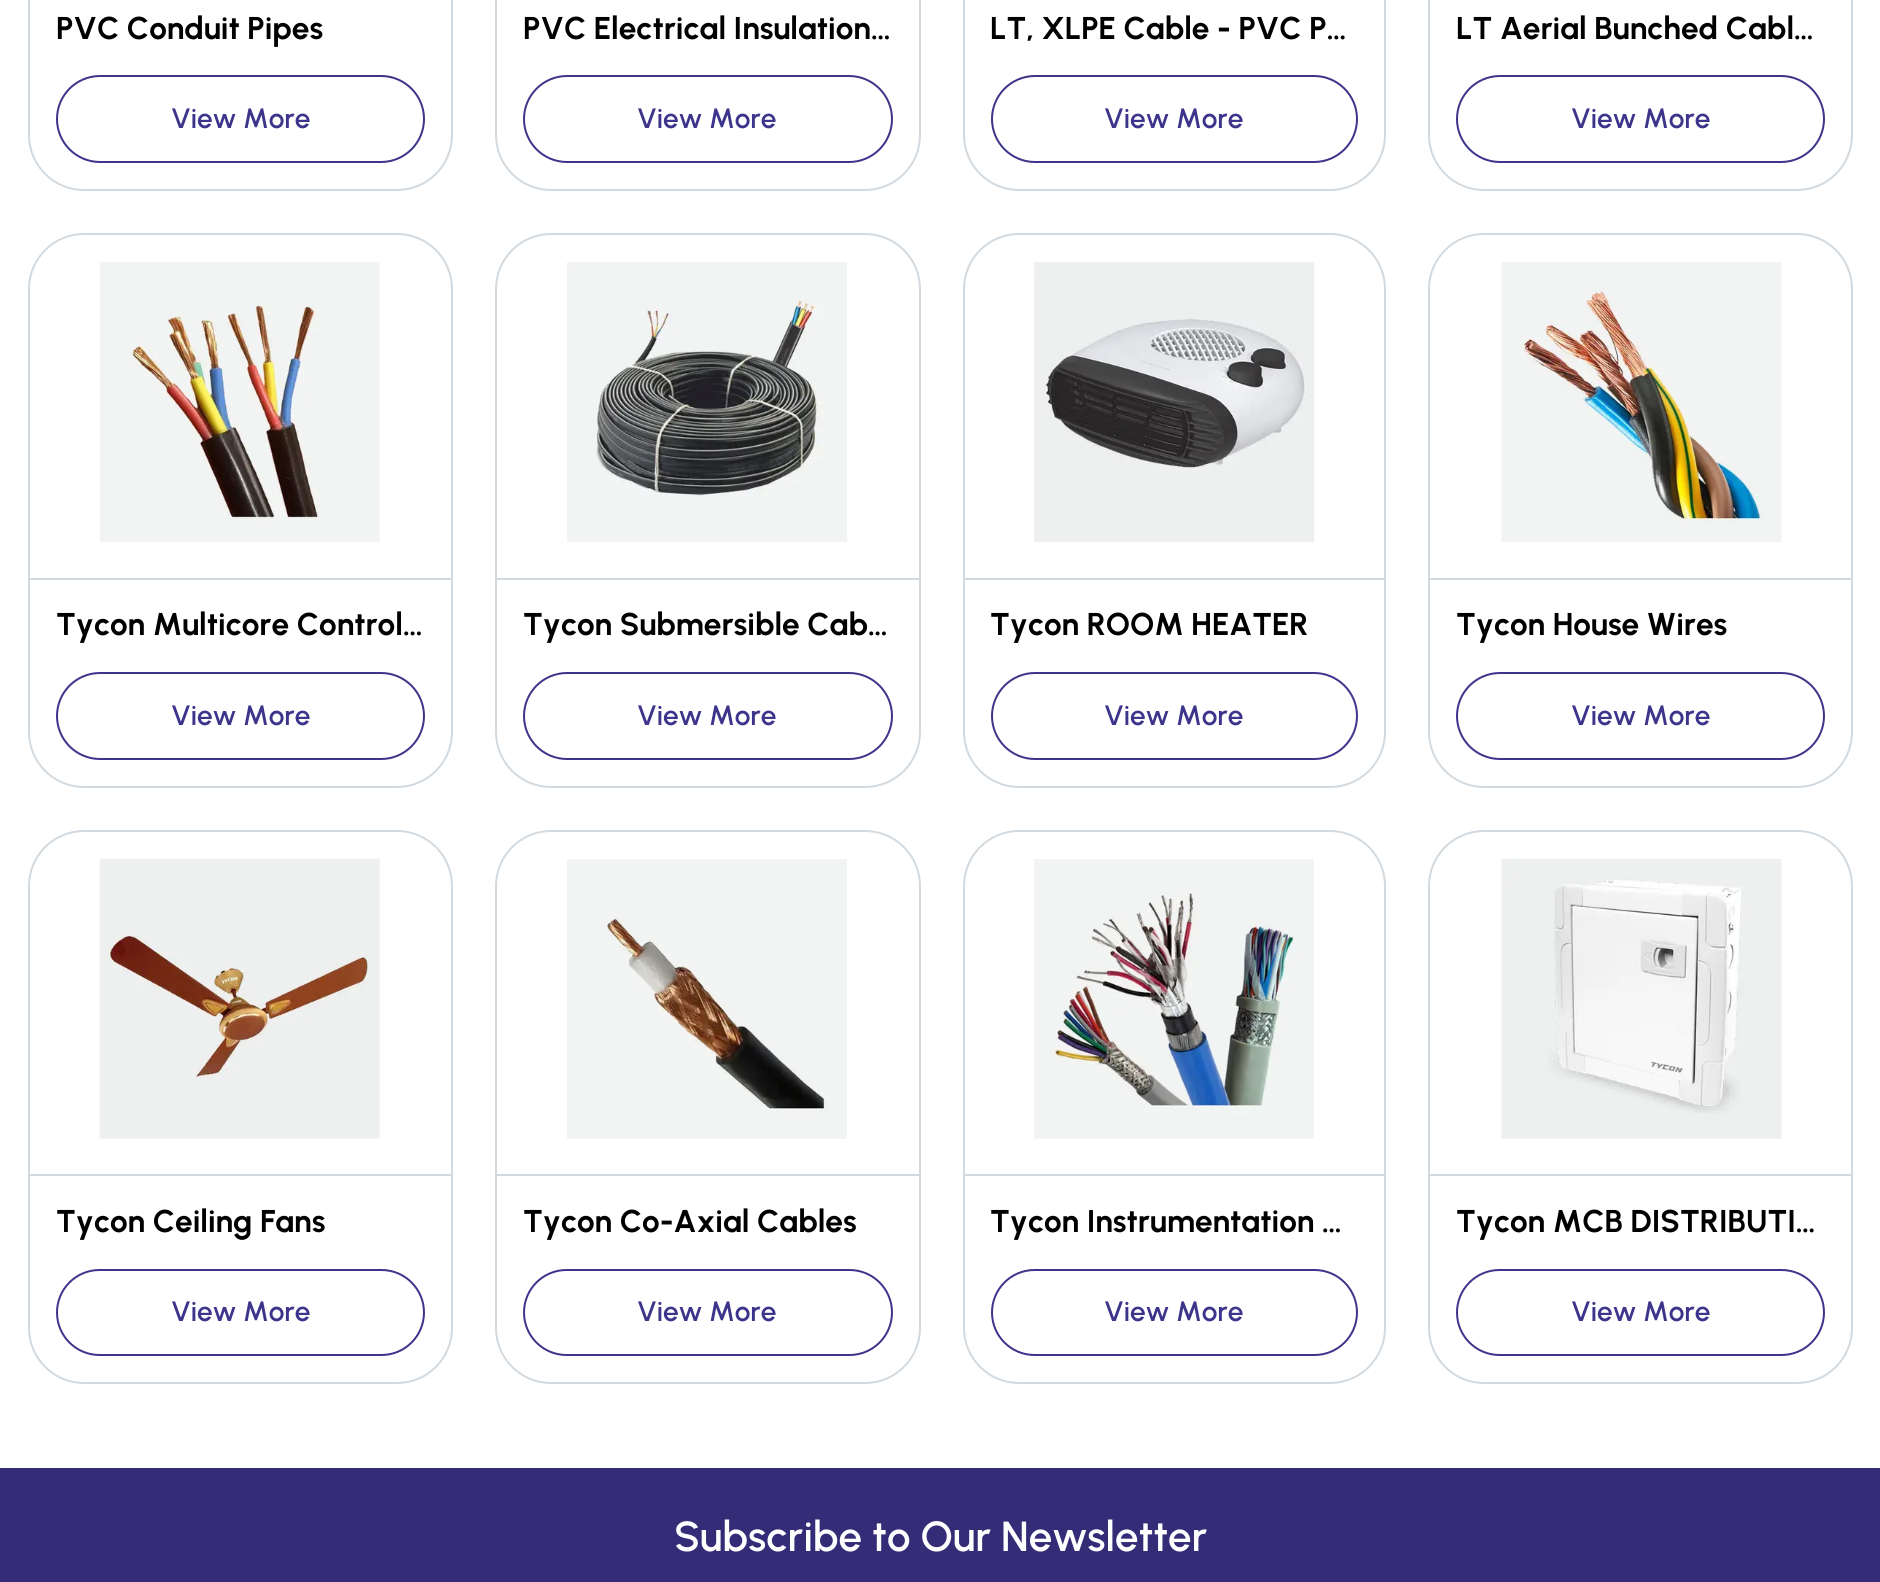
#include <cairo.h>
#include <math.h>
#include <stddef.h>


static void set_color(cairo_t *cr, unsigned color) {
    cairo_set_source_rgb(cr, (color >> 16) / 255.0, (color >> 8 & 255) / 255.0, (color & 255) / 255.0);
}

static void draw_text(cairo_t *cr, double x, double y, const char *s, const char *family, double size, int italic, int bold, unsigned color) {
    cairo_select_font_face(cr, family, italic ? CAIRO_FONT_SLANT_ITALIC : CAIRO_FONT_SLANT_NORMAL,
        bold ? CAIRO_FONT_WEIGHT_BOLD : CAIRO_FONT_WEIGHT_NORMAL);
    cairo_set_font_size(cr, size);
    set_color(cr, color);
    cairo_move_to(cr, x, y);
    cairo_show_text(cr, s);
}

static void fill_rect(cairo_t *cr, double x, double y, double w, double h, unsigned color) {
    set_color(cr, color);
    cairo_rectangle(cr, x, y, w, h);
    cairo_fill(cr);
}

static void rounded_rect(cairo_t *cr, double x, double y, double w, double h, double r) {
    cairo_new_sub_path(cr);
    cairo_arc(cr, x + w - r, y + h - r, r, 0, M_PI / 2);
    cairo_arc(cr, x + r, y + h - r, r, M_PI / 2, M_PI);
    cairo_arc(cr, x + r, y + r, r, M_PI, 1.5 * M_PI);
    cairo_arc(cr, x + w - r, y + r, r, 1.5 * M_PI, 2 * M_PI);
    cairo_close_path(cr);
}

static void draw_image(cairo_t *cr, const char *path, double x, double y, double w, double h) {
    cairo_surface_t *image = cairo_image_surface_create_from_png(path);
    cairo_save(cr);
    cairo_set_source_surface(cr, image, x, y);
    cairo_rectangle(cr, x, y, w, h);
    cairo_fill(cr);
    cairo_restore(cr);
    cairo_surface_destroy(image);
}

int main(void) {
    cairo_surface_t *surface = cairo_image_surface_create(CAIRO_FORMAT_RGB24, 1880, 1582);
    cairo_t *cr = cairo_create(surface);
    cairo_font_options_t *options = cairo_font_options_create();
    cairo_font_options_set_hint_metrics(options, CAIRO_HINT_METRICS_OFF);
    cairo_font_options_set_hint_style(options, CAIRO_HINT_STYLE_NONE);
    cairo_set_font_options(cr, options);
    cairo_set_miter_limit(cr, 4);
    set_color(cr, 0xFFFFFF);
    cairo_paint(cr);
    rounded_rect(cr, 29, -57, 423, 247, 55);
    set_color(cr, 0xD2DAE0);
    cairo_stroke(cr);
    draw_text(cr, 56, 39, "PVC Conduit Pipes", "Urbanist", 31.5, 0, 1, 0x000000);
    rounded_rect(cr, 57, 76, 367, 86, 43);
    set_color(cr, 0x3D348B);
    cairo_stroke(cr);
    draw_text(cr, 171, 128, "View More", "Urbanist SemiBold", 28, 0, 0, 0x3D348B);
    rounded_rect(cr, 496, -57, 424, 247, 55);
    set_color(cr, 0xD2DAE0);
    cairo_stroke(cr);
    draw_text(cr, 523, 39, "PVC Electrical Insulation…", "Urbanist", 31.5, 0, 1, 0x000000);
    rounded_rect(cr, 524, 76, 368, 86, 43);
    set_color(cr, 0x3D348B);
    cairo_stroke(cr);
    draw_text(cr, 637, 128, "View More", "Urbanist SemiBold", 28, 0, 0, 0x3D348B);
    rounded_rect(cr, 964, -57, 421, 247, 55);
    set_color(cr, 0xD2DAE0);
    cairo_stroke(cr);
    draw_text(cr, 990, 39, "LT, XLPE Cable - PVC P…", "Urbanist", 31.5, 0, 1, 0x000000);
    rounded_rect(cr, 992, 76, 365, 86, 43);
    set_color(cr, 0x3D348B);
    cairo_stroke(cr);
    draw_text(cr, 1104, 128, "View More", "Urbanist SemiBold", 28, 0, 0, 0x3D348B);
    rounded_rect(cr, 1429, -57, 423, 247, 55);
    set_color(cr, 0xD2DAE0);
    cairo_stroke(cr);
    draw_text(cr, 1456, 39, "LT Aerial Bunched Cabl…", "Urbanist", 31.5, 0, 1, 0x000000);
    rounded_rect(cr, 1457, 76, 367, 86, 43);
    set_color(cr, 0x3D348B);
    cairo_stroke(cr);
    draw_text(cr, 1571, 128, "View More", "Urbanist SemiBold", 28, 0, 0, 0x3D348B);
    rounded_rect(cr, 29, 234, 423, 553, 55);
    set_color(cr, 0xD2DAE0);
    cairo_stroke(cr);
    draw_image(cr, "assets/img1.png", 100, 262, 280, 280);
    fill_rect(cr, 30, 578, 422, 2, 0xD2DAE0);
    draw_text(cr, 56, 635, "Tycon Multicore Control…", "Urbanist", 31.5, 0, 1, 0x000000);
    rounded_rect(cr, 57, 673, 367, 86, 43);
    set_color(cr, 0x3D348B);
    cairo_stroke(cr);
    draw_text(cr, 171, 725, "View More", "Urbanist SemiBold", 28, 0, 0, 0x3D348B);
    rounded_rect(cr, 496, 234, 424, 553, 55);
    set_color(cr, 0xD2DAE0);
    cairo_stroke(cr);
    draw_image(cr, "assets/img2.png", 567, 262, 280, 280);
    fill_rect(cr, 497, 578, 422, 2, 0xD2DAE0);
    draw_text(cr, 523, 635, "Tycon Submersible Cab…", "Urbanist", 31.5, 0, 1, 0x000000);
    rounded_rect(cr, 524, 673, 368, 86, 43);
    set_color(cr, 0x3D348B);
    cairo_stroke(cr);
    draw_text(cr, 637, 725, "View More", "Urbanist SemiBold", 28, 0, 0, 0x3D348B);
    rounded_rect(cr, 964, 234, 421, 553, 55);
    set_color(cr, 0xD2DAE0);
    cairo_stroke(cr);
    draw_image(cr, "assets/img3.png", 1034, 262, 281, 280);
    fill_rect(cr, 964, 578, 420, 2, 0xD2DAE0);
    cairo_save(cr);
    cairo_rectangle(cr, 991, 606, 367, 38);
    cairo_clip(cr);
    draw_text(cr, 990, 635, "Tycon ROOM HEATER", "Urbanist", 31.5, 0, 1, 0x000000);
    cairo_restore(cr);
    rounded_rect(cr, 992, 673, 365, 86, 43);
    set_color(cr, 0x3D348B);
    cairo_stroke(cr);
    draw_text(cr, 1104, 725, "View More", "Urbanist SemiBold", 28, 0, 0, 0x3D348B);
    rounded_rect(cr, 1429, 234, 423, 553, 55);
    set_color(cr, 0xD2DAE0);
    cairo_stroke(cr);
    draw_image(cr, "assets/img4.png", 1501, 262, 281, 280);
    fill_rect(cr, 1430, 578, 422, 2, 0xD2DAE0);
    draw_text(cr, 1456, 635, "Tycon House Wires", "Urbanist", 31.5, 0, 1, 0x000000);
    rounded_rect(cr, 1457, 673, 367, 86, 43);
    set_color(cr, 0x3D348B);
    cairo_stroke(cr);
    draw_text(cr, 1571, 725, "View More", "Urbanist SemiBold", 28, 0, 0, 0x3D348B);
    rounded_rect(cr, 29, 831, 423, 552, 55);
    set_color(cr, 0xD2DAE0);
    cairo_stroke(cr);
    draw_image(cr, "assets/img5.png", 99, 858, 281, 281);
    fill_rect(cr, 30, 1174, 422, 2, 0xD2DAE0);
    draw_text(cr, 56, 1232, "Tycon Ceiling Fans", "Urbanist", 31.5, 0, 1, 0x000000);
    rounded_rect(cr, 57, 1270, 367, 85, 42.5);
    set_color(cr, 0x3D348B);
    cairo_stroke(cr);
    draw_text(cr, 171, 1321, "View More", "Urbanist SemiBold", 28, 0, 0, 0x3D348B);
    rounded_rect(cr, 496, 831, 424, 552, 55);
    set_color(cr, 0xD2DAE0);
    cairo_stroke(cr);
    draw_image(cr, "assets/img6.png", 567, 859, 280, 280);
    fill_rect(cr, 497, 1174, 422, 2, 0xD2DAE0);
    draw_text(cr, 523, 1232, "Tycon Co-Axial Cables", "Urbanist", 31.5, 0, 1, 0x000000);
    rounded_rect(cr, 524, 1270, 368, 85, 42.5);
    set_color(cr, 0x3D348B);
    cairo_stroke(cr);
    draw_text(cr, 637, 1321, "View More", "Urbanist SemiBold", 28, 0, 0, 0x3D348B);
    rounded_rect(cr, 964, 831, 421, 552, 55);
    set_color(cr, 0xD2DAE0);
    cairo_stroke(cr);
    draw_image(cr, "assets/img7.png", 1034, 859, 280, 280);
    fill_rect(cr, 964, 1174, 420, 2, 0xD2DAE0);
    cairo_save(cr);
    cairo_rectangle(cr, 991, 1202, 367, 39);
    cairo_clip(cr);
    draw_text(cr, 990, 1232, "Tycon Instrumentation …", "Urbanist", 31.5, 0, 1, 0x000000);
    cairo_restore(cr);
    rounded_rect(cr, 992, 1270, 365, 85, 42.5);
    set_color(cr, 0x3D348B);
    cairo_stroke(cr);
    draw_text(cr, 1104, 1321, "View More", "Urbanist SemiBold", 28, 0, 0, 0x3D348B);
    rounded_rect(cr, 1429, 831, 423, 552, 55);
    set_color(cr, 0xD2DAE0);
    cairo_stroke(cr);
    draw_image(cr, "assets/img8.png", 1501, 858, 281, 281);
    fill_rect(cr, 1430, 1174, 422, 2, 0xD2DAE0);
    draw_text(cr, 1456, 1232, "Tycon MCB DISTRIBUTI…", "Urbanist", 31.5, 0, 1, 0x000000);
    rounded_rect(cr, 1457, 1270, 367, 85, 42.5);
    set_color(cr, 0x3D348B);
    cairo_stroke(cr);
    draw_text(cr, 1571, 1321, "View More", "Urbanist SemiBold", 28, 0, 0, 0x3D348B);
    fill_rect(cr, 0, 1468, 1880, 114, 0x342C77);
    draw_text(cr, 674, 1551, "Subscribe to Our Newsletter", "Urbanist SemiBold", 42, 0, 0, 0xFFFFFF);
    cairo_surface_write_to_png(surface, "output.png");
    cairo_font_options_destroy(options);
    cairo_destroy(cr);
    cairo_surface_destroy(surface);
    return 0;
}
